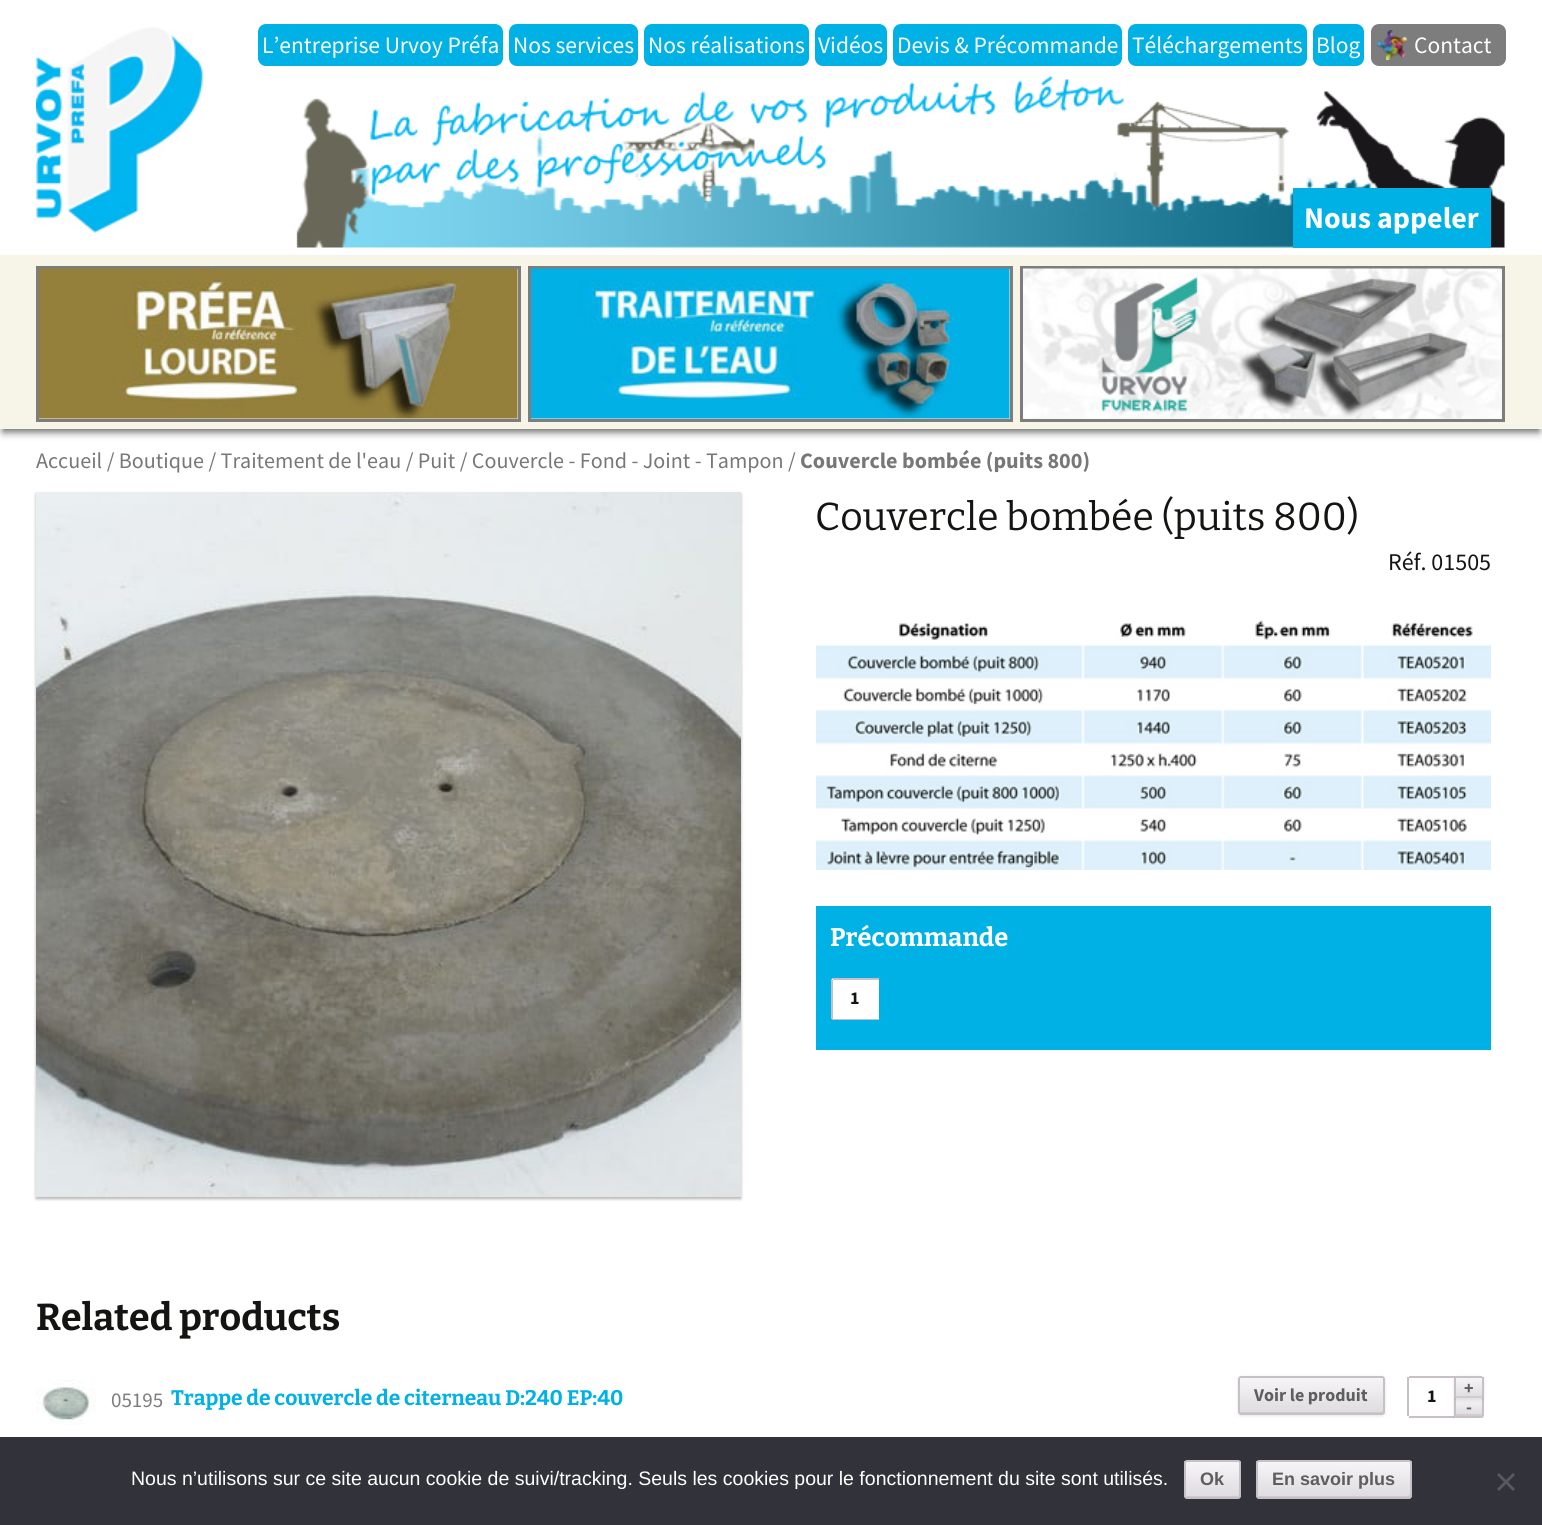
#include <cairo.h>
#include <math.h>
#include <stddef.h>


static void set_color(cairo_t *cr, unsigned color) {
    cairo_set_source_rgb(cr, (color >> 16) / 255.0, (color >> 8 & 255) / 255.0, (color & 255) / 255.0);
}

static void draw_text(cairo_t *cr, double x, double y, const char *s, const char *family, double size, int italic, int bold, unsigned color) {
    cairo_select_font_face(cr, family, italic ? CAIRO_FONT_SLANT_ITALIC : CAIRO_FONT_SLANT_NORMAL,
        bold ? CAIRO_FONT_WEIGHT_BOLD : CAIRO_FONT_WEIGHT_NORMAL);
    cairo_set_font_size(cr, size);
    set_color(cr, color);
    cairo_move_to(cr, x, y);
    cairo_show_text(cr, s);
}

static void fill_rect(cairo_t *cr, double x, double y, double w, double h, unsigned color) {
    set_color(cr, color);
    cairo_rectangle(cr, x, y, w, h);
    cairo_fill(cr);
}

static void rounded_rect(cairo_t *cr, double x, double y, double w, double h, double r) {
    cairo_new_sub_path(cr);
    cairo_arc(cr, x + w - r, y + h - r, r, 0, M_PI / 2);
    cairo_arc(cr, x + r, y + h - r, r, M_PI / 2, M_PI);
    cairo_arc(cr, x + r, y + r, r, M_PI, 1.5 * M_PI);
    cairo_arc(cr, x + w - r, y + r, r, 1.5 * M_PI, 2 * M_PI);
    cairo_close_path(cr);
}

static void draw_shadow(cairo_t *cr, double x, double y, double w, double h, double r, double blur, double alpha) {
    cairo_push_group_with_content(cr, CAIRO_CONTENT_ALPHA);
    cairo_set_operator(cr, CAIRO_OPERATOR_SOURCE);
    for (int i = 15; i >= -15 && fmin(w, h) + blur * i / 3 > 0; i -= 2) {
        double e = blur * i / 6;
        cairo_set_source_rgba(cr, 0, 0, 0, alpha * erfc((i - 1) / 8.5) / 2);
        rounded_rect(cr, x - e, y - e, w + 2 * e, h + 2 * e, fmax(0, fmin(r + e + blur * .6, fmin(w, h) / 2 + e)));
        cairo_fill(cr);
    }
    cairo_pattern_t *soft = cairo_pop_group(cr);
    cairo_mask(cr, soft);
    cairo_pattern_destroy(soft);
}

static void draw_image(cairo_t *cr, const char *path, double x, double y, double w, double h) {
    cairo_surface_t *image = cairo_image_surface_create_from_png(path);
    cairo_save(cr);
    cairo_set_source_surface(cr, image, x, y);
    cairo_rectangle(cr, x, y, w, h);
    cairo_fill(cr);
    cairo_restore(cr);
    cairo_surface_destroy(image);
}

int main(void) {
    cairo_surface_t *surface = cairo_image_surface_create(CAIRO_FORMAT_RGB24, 1542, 1525);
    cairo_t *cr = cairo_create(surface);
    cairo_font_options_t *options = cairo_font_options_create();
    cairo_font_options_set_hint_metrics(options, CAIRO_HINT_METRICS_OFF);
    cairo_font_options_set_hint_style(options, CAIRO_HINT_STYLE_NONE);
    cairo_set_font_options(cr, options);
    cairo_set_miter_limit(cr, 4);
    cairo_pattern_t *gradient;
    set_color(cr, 0xFFFFFF);
    cairo_paint(cr);
    draw_image(cr, "assets/img1.png", 36, 27, 167, 206);
    set_color(cr, 0x00B1E6);
    rounded_rect(cr, 258, 24, 245, 42, 8);
    cairo_fill(cr);
    draw_text(cr, 262, 53, "L’entreprise Urvoy Préfa", "Source Sans Pro", 23.5, 0, 0, 0xFFFFFF);
    set_color(cr, 0x00B1E6);
    rounded_rect(cr, 509, 24, 129, 42, 8);
    cairo_fill(cr);
    draw_text(cr, 513, 53, "Nos services", "Source Sans Pro", 23.5, 0, 0, 0xFFFFFF);
    set_color(cr, 0x00B1E6);
    rounded_rect(cr, 644, 24, 165, 42, 8);
    cairo_fill(cr);
    draw_text(cr, 648, 53, "Nos réalisations", "Source Sans Pro", 23.5, 0, 0, 0xFFFFFF);
    set_color(cr, 0x00B1E6);
    rounded_rect(cr, 815, 24, 72, 42, 8);
    cairo_fill(cr);
    draw_text(cr, 818, 53, "Vidéos", "Source Sans Pro", 23.5, 0, 0, 0xFFFFFF);
    set_color(cr, 0x00B1E6);
    rounded_rect(cr, 893, 24, 229, 42, 8);
    cairo_fill(cr);
    draw_text(cr, 897, 53, "Devis & Précommande", "Source Sans Pro", 23.5, 0, 0, 0xFFFFFF);
    set_color(cr, 0x00B1E6);
    rounded_rect(cr, 1128, 24, 179, 42, 8);
    cairo_fill(cr);
    draw_text(cr, 1132, 53, "Téléchargements", "Source Sans Pro", 23.5, 0, 0, 0xFFFFFF);
    set_color(cr, 0x00B1E6);
    rounded_rect(cr, 1313, 24, 51, 42, 8);
    cairo_fill(cr);
    draw_text(cr, 1316, 53, "Blog", "Source Sans Pro", 23.5, 0, 0, 0xFFFFFF);
    set_color(cr, 0x7D7D7D);
    rounded_rect(cr, 1371, 24, 135, 42, 8);
    cairo_fill(cr);
    draw_image(cr, "assets/img2.png", 1377, 30, 30, 30);
    draw_text(cr, 1414, 53, "Contact", "Source Sans Pro", 23.5, 0, 0, 0xFFFFFF);
    draw_image(cr, "assets/img3.png", 296, 91, 1209, 157);
    draw_image(cr, "assets/img4.png", 363, 76, 761, 127);
    fill_rect(cr, 1293, 188, 198, 60, 0x00B1E6);
    draw_text(cr, 1304, 228, "Nous appeler", "Source Sans Pro", 30, 0, 1, 0xFFFFFF);
    set_color(cr, 0x000000);
    draw_shadow(cr, 3, 264, 1536, 168, 0, 4, 0.6);
    fill_rect(cr, 0, 255, 1542, 174, 0xF7F5E7);
    cairo_rectangle(cr, 37.5, 267.5, 482, 153);
    set_color(cr, 0x7D7D7D);
    cairo_set_line_width(cr, 3);
    cairo_stroke(cr);
    draw_image(cr, "assets/img5.png", 39, 268, 479, 151);
    cairo_rectangle(cr, 529.5, 267.5, 482, 153);
    cairo_stroke(cr);
    draw_image(cr, "assets/img6.png", 531, 268, 479, 151);
    cairo_rectangle(cr, 1021.5, 267.5, 482, 153);
    cairo_stroke(cr);
    draw_image(cr, "assets/img7.png", 1023, 268, 479, 151);
    draw_text(cr, 36, 468, "Accueil / Boutique / Traitement de l'eau / Puit / Couvercle - Fond - Joint - Tampon /", "Source Sans Pro", 22.1, 0, 0, 0x777777);
    draw_text(cr, 800, 468, "Couvercle bombée (puits 800)", "Source Sans Pro", 22.1, 0, 1, 0x777777);
    set_color(cr, 0x000000);
    draw_shadow(cr, 36, 494, 705, 705, 0, 1.5, 0.3);
    draw_image(cr, "assets/img8.png", 36, 492, 705, 705);
    draw_text(cr, 815, 530, "Couvercle bombée (puits 800)", "Bitter", 39, 0, 0, 0x141412);
    draw_text(cr, 1388, 570, "Réf. 01505", "Source Sans Pro", 24, 0, 0, 0x141412);
    draw_image(cr, "assets/img9.png", 816, 620, 675, 250);
    fill_rect(cr, 816, 906, 675, 144, 0x00B1E6);
    draw_text(cr, 830, 946, "Précommande", "Bitter", 25.5, 0, 1, 0xFFFFFF);
    cairo_new_path(cr);
    cairo_move_to(cr, 834, 978);
    cairo_line_to(cr, 879, 978);
    cairo_line_to(cr, 879, 1020);
    cairo_line_to(cr, 834, 1020);
    cairo_curve_to(cr, 832.5, 1020, 831, 1018.5, 831, 1017);
    cairo_line_to(cr, 831, 981);
    cairo_curve_to(cr, 831, 979.5, 832.5, 978, 834, 978);
    cairo_close_path(cr);
    cairo_fill(cr);
    fill_rect(cr, 833, 978, 46, 2, 0xC7C0C7);
    fill_rect(cr, 833, 1019, 46, 1, 0xC7C0C7);
    fill_rect(cr, 831, 980, 2, 39, 0xC7C0C7);
    draw_text(cr, 850, 1004, "1", "Source Sans Pro", 18, 0, 1, 0x141412);
    draw_text(cr, 36, 1330, "Related products", "Bitter", 37.5, 0, 1, 0x141412);
    draw_image(cr, "assets/img10.png", 36, 1379, 60, 46);
    draw_text(cr, 111, 1407, "05195", "Source Sans Pro", 21, 0, 0, 0x7D7D7D);
    draw_text(cr, 171, 1405, "Trappe de couvercle de citerneau D:240 EP:40", "Bitter", 21, 0, 1, 0x00B1E6);
    set_color(cr, 0x000000);
    draw_shadow(cr, 1238, 1377, 147, 39, 3, 1.5, 0.1);
    cairo_save(cr);
    rounded_rect(cr, 1238, 1376, 147, 39, 3);
    cairo_clip(cr);
    gradient = cairo_pattern_create_linear(1311, 1377, 1311, 1413);
    cairo_pattern_add_color_stop_rgba(gradient, 0, 0.969, 0.965, 0.969, 1);
    cairo_pattern_add_color_stop_rgba(gradient, 1, 0.875, 0.859, 0.875, 1);
    cairo_set_source(cr, gradient);
    cairo_pattern_destroy(gradient);
    cairo_rectangle(cr, 1238, 1377, 147, 36);
    cairo_fill(cr);
    cairo_restore(cr);
    set_color(cr, 0xF9F9F9);
    cairo_new_path(cr);
    cairo_move_to(cr, 1240, 1378);
    cairo_line_to(cr, 1382, 1378);
    cairo_line_to(cr, 1383, 1380);
    cairo_curve_to(cr, 1383, 1379, 1383, 1377, 1382, 1377);
    cairo_line_to(cr, 1240, 1377);
    cairo_curve_to(cr, 1239, 1377, 1239, 1379, 1239, 1380);
    cairo_close_path(cr);
    cairo_fill(cr);
    set_color(cr, 0xCECBCE);
    cairo_new_path(cr);
    cairo_move_to(cr, 1239, 1410);
    cairo_curve_to(cr, 1239, 1411, 1239, 1413, 1240, 1413);
    cairo_line_to(cr, 1382, 1413);
    cairo_curve_to(cr, 1383, 1413, 1383, 1411, 1383, 1410);
    cairo_line_to(cr, 1382, 1412);
    cairo_line_to(cr, 1240, 1412);
    cairo_close_path(cr);
    cairo_fill(cr);
    rounded_rect(cr, 1239, 1377, 145, 37, 2);
    set_color(cr, 0xC7C0C7);
    cairo_set_line_width(cr, 2);
    cairo_stroke(cr);
    draw_text(cr, 1254, 1401, "Voir le produit", "Source Sans Pro", 18, 0, 1, 0x5E5E5E);
    fill_rect(cr, 1409, 1376, 46, 2, 0xC7C0C7);
    fill_rect(cr, 1409, 1416, 46, 2, 0xC7C0C7);
    cairo_save(cr);
    cairo_rectangle(cr, 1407, 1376, 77, 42);
    cairo_clip(cr);
    set_color(cr, 0x000000);
    draw_shadow(cr, 1454, 1397, 30, 22, 3, 1.5, 0.1);
    cairo_restore(cr);
    gradient = cairo_pattern_create_linear(1469, 1397, 1469, 1416);
    cairo_pattern_add_color_stop_rgba(gradient, 0, 0.969, 0.965, 0.969, 1);
    cairo_pattern_add_color_stop_rgba(gradient, 1, 0.875, 0.859, 0.875, 1);
    cairo_set_source(cr, gradient);
    cairo_pattern_destroy(gradient);
    cairo_rectangle(cr, 1454, 1398, 30, 18);
    cairo_fill(cr);
    set_color(cr, 0xD0CCD0);
    cairo_new_path(cr);
    cairo_move_to(cr, 1455, 1413);
    cairo_curve_to(cr, 1455, 1417, 1456.5, 1416, 1460.5, 1416);
    cairo_line_to(cr, 1476.5, 1416);
    cairo_curve_to(cr, 1480.5, 1416, 1482, 1417, 1482, 1413);
    cairo_curve_to(cr, 1482, 1414, 1481, 1414, 1480, 1414);
    cairo_line_to(cr, 1456, 1414);
    cairo_curve_to(cr, 1456, 1414, 1455, 1414, 1455, 1413);
    cairo_close_path(cr);
    cairo_fill(cr);
    cairo_new_path(cr);
    cairo_move_to(cr, 1455, 1396);
    cairo_line_to(cr, 1483, 1396);
    cairo_line_to(cr, 1483, 1415);
    cairo_curve_to(cr, 1483, 1416, 1482, 1417, 1481, 1417);
    cairo_line_to(cr, 1457, 1417);
    cairo_curve_to(cr, 1456, 1417, 1455, 1416, 1455, 1415);
    cairo_close_path(cr);
    set_color(cr, 0xC7C0C7);
    cairo_stroke(cr);
    set_color(cr, 0x000000);
    draw_shadow(cr, 1454, 1377, 30, 23, 3, 1.5, 0.1);
    cairo_save(cr);
    cairo_new_path(cr);
    cairo_move_to(cr, 1457, 1376);
    cairo_line_to(cr, 1481, 1376);
    cairo_curve_to(cr, 1482.5, 1376, 1484, 1377.5, 1484, 1379);
    cairo_line_to(cr, 1484, 1398);
    cairo_line_to(cr, 1454, 1398);
    cairo_line_to(cr, 1454, 1379);
    cairo_curve_to(cr, 1454, 1377.5, 1455.5, 1376, 1457, 1376);
    cairo_close_path(cr);
    cairo_clip(cr);
    gradient = cairo_pattern_create_linear(1469, 1356, 1469, 1377);
    cairo_pattern_add_color_stop_rgba(gradient, 0, 0.969, 0.965, 0.969, 1);
    cairo_pattern_add_color_stop_rgba(gradient, 1, 0.875, 0.859, 0.875, 1);
    cairo_set_source(cr, gradient);
    cairo_pattern_destroy(gradient);
    cairo_rectangle(cr, 1454, 1376, 30, 1);
    cairo_fill(cr);
    cairo_restore(cr);
    gradient = cairo_pattern_create_linear(1469, 1377, 1469, 1398);
    cairo_pattern_add_color_stop_rgba(gradient, 0, 0.969, 0.965, 0.969, 1);
    cairo_pattern_add_color_stop_rgba(gradient, 1, 0.875, 0.859, 0.875, 1);
    cairo_set_source(cr, gradient);
    cairo_pattern_destroy(gradient);
    cairo_rectangle(cr, 1456, 1378, 26, 18);
    cairo_fill(cr);
    set_color(cr, 0xF9F8F9);
    cairo_new_path(cr);
    cairo_move_to(cr, 1456, 1378);
    cairo_line_to(cr, 1480, 1378);
    cairo_curve_to(cr, 1481, 1378, 1482, 1379, 1482, 1380);
    cairo_curve_to(cr, 1482, 1376, 1480.5, 1377, 1476.5, 1377);
    cairo_line_to(cr, 1460.5, 1377);
    cairo_curve_to(cr, 1456.5, 1377, 1455, 1376, 1455, 1380);
    cairo_close_path(cr);
    cairo_fill(cr);
    fill_rect(cr, 1455, 1396, 27, 2, 0xD0CCD0);
    fill_rect(cr, 1455, 1376, 27, 2, 0xC7C0C7);
    fill_rect(cr, 1482, 1377, 2, 21, 0xC7C0C7);
    fill_rect(cr, 1454, 1377, 2, 21, 0xC7C0C7);
    draw_text(cr, 1464, 1394, "+", "Source Sans Pro", 18, 0, 1, 0x5E5E5E);
    fill_rect(cr, 1407, 1377, 2, 39, 0xC7C0C7);
    draw_text(cr, 1427, 1402, "1", "Source Sans Pro", 18, 0, 1, 0x141412);
    draw_text(cr, 1466, 1413, "-", "Source Sans Pro", 18, 0, 1, 0x5E5E5E);
    fill_rect(cr, 0, 1437, 1542, 88, 0x32323A);
    draw_text(cr, 131, 1485, "Nous n’utilisons sur ce site aucun cookie de suivi/tracking. Seuls les cookies pour le fonctionnement du site sont utilisés.", "Liberation Sans", 19.5, 0, 0, 0xFFFFFF);
    cairo_save(cr);
    rounded_rect(cr, 1184, 1460, 57, 39, 3);
    cairo_clip(cr);
    gradient = cairo_pattern_create_linear(1212, 1461, 1212, 1497);
    cairo_pattern_add_color_stop_rgba(gradient, 0, 0.969, 0.965, 0.969, 1);
    cairo_pattern_add_color_stop_rgba(gradient, 1, 0.875, 0.859, 0.875, 1);
    cairo_set_source(cr, gradient);
    cairo_pattern_destroy(gradient);
    cairo_rectangle(cr, 1184, 1461, 57, 36);
    cairo_fill(cr);
    cairo_restore(cr);
    set_color(cr, 0xF9F9F9);
    cairo_new_path(cr);
    cairo_move_to(cr, 1186, 1462);
    cairo_line_to(cr, 1238, 1462);
    cairo_line_to(cr, 1239, 1464);
    cairo_curve_to(cr, 1239, 1459, 1234, 1461, 1229, 1461);
    cairo_line_to(cr, 1195, 1461);
    cairo_curve_to(cr, 1190, 1461, 1185, 1459, 1185, 1464);
    cairo_close_path(cr);
    cairo_fill(cr);
    set_color(cr, 0xCECBCE);
    cairo_new_path(cr);
    cairo_move_to(cr, 1185, 1494);
    cairo_curve_to(cr, 1185, 1499, 1190, 1497, 1195, 1497);
    cairo_line_to(cr, 1229, 1497);
    cairo_curve_to(cr, 1234, 1497, 1239, 1499, 1239, 1494);
    cairo_line_to(cr, 1238, 1496);
    cairo_line_to(cr, 1186, 1496);
    cairo_close_path(cr);
    cairo_fill(cr);
    rounded_rect(cr, 1185, 1461, 55, 37, 2);
    set_color(cr, 0xC7C0C7);
    cairo_stroke(cr);
    draw_text(cr, 1200, 1485, "Ok", "Liberation Sans", 18, 0, 1, 0x5E5E5E);
    cairo_save(cr);
    rounded_rect(cr, 1256, 1460, 156, 39, 3);
    cairo_clip(cr);
    gradient = cairo_pattern_create_linear(1334, 1461, 1334, 1497);
    cairo_pattern_add_color_stop_rgba(gradient, 0, 0.969, 0.965, 0.969, 1);
    cairo_pattern_add_color_stop_rgba(gradient, 1, 0.875, 0.859, 0.875, 1);
    cairo_set_source(cr, gradient);
    cairo_pattern_destroy(gradient);
    cairo_rectangle(cr, 1256, 1461, 156, 36);
    cairo_fill(cr);
    cairo_restore(cr);
    set_color(cr, 0xF9F9F9);
    cairo_new_path(cr);
    cairo_move_to(cr, 1258, 1462);
    cairo_line_to(cr, 1408, 1462);
    cairo_curve_to(cr, 1409, 1462, 1410, 1463, 1410, 1464);
    cairo_curve_to(cr, 1410, 1463, 1410, 1462, 1409, 1461);
    cairo_line_to(cr, 1258, 1461);
    cairo_line_to(cr, 1257, 1461);
    cairo_line_to(cr, 1257, 1464);
    cairo_close_path(cr);
    cairo_fill(cr);
    set_color(cr, 0xCECBCE);
    cairo_new_path(cr);
    cairo_move_to(cr, 1257, 1494);
    cairo_curve_to(cr, 1257, 1495, 1257, 1496, 1258, 1497);
    cairo_line_to(cr, 1408, 1497);
    cairo_line_to(cr, 1410, 1497);
    cairo_line_to(cr, 1410, 1494);
    cairo_curve_to(cr, 1410, 1495, 1409, 1496, 1408, 1496);
    cairo_line_to(cr, 1258, 1496);
    cairo_close_path(cr);
    cairo_fill(cr);
    rounded_rect(cr, 1257, 1461, 154, 37, 2);
    set_color(cr, 0xC7C0C7);
    cairo_stroke(cr);
    draw_text(cr, 1272, 1485, "En savoir plus", "Liberation Sans", 18, 0, 1, 0x5E5E5E);
    set_color(cr, 0x59595D);
    cairo_new_path(cr);
    cairo_move_to(cr, 1513, 1473);
    cairo_line_to(cr, 1515, 1475);
    cairo_line_to(cr, 1499, 1491);
    cairo_line_to(cr, 1497, 1489);
    cairo_close_path(cr);
    cairo_fill(cr);
    cairo_new_path(cr);
    cairo_move_to(cr, 1497, 1475);
    cairo_line_to(cr, 1499, 1473);
    cairo_line_to(cr, 1515, 1489);
    cairo_line_to(cr, 1513, 1491);
    cairo_close_path(cr);
    cairo_fill(cr);
    cairo_surface_write_to_png(surface, "output.png");
    cairo_font_options_destroy(options);
    cairo_destroy(cr);
    cairo_surface_destroy(surface);
    return 0;
}
